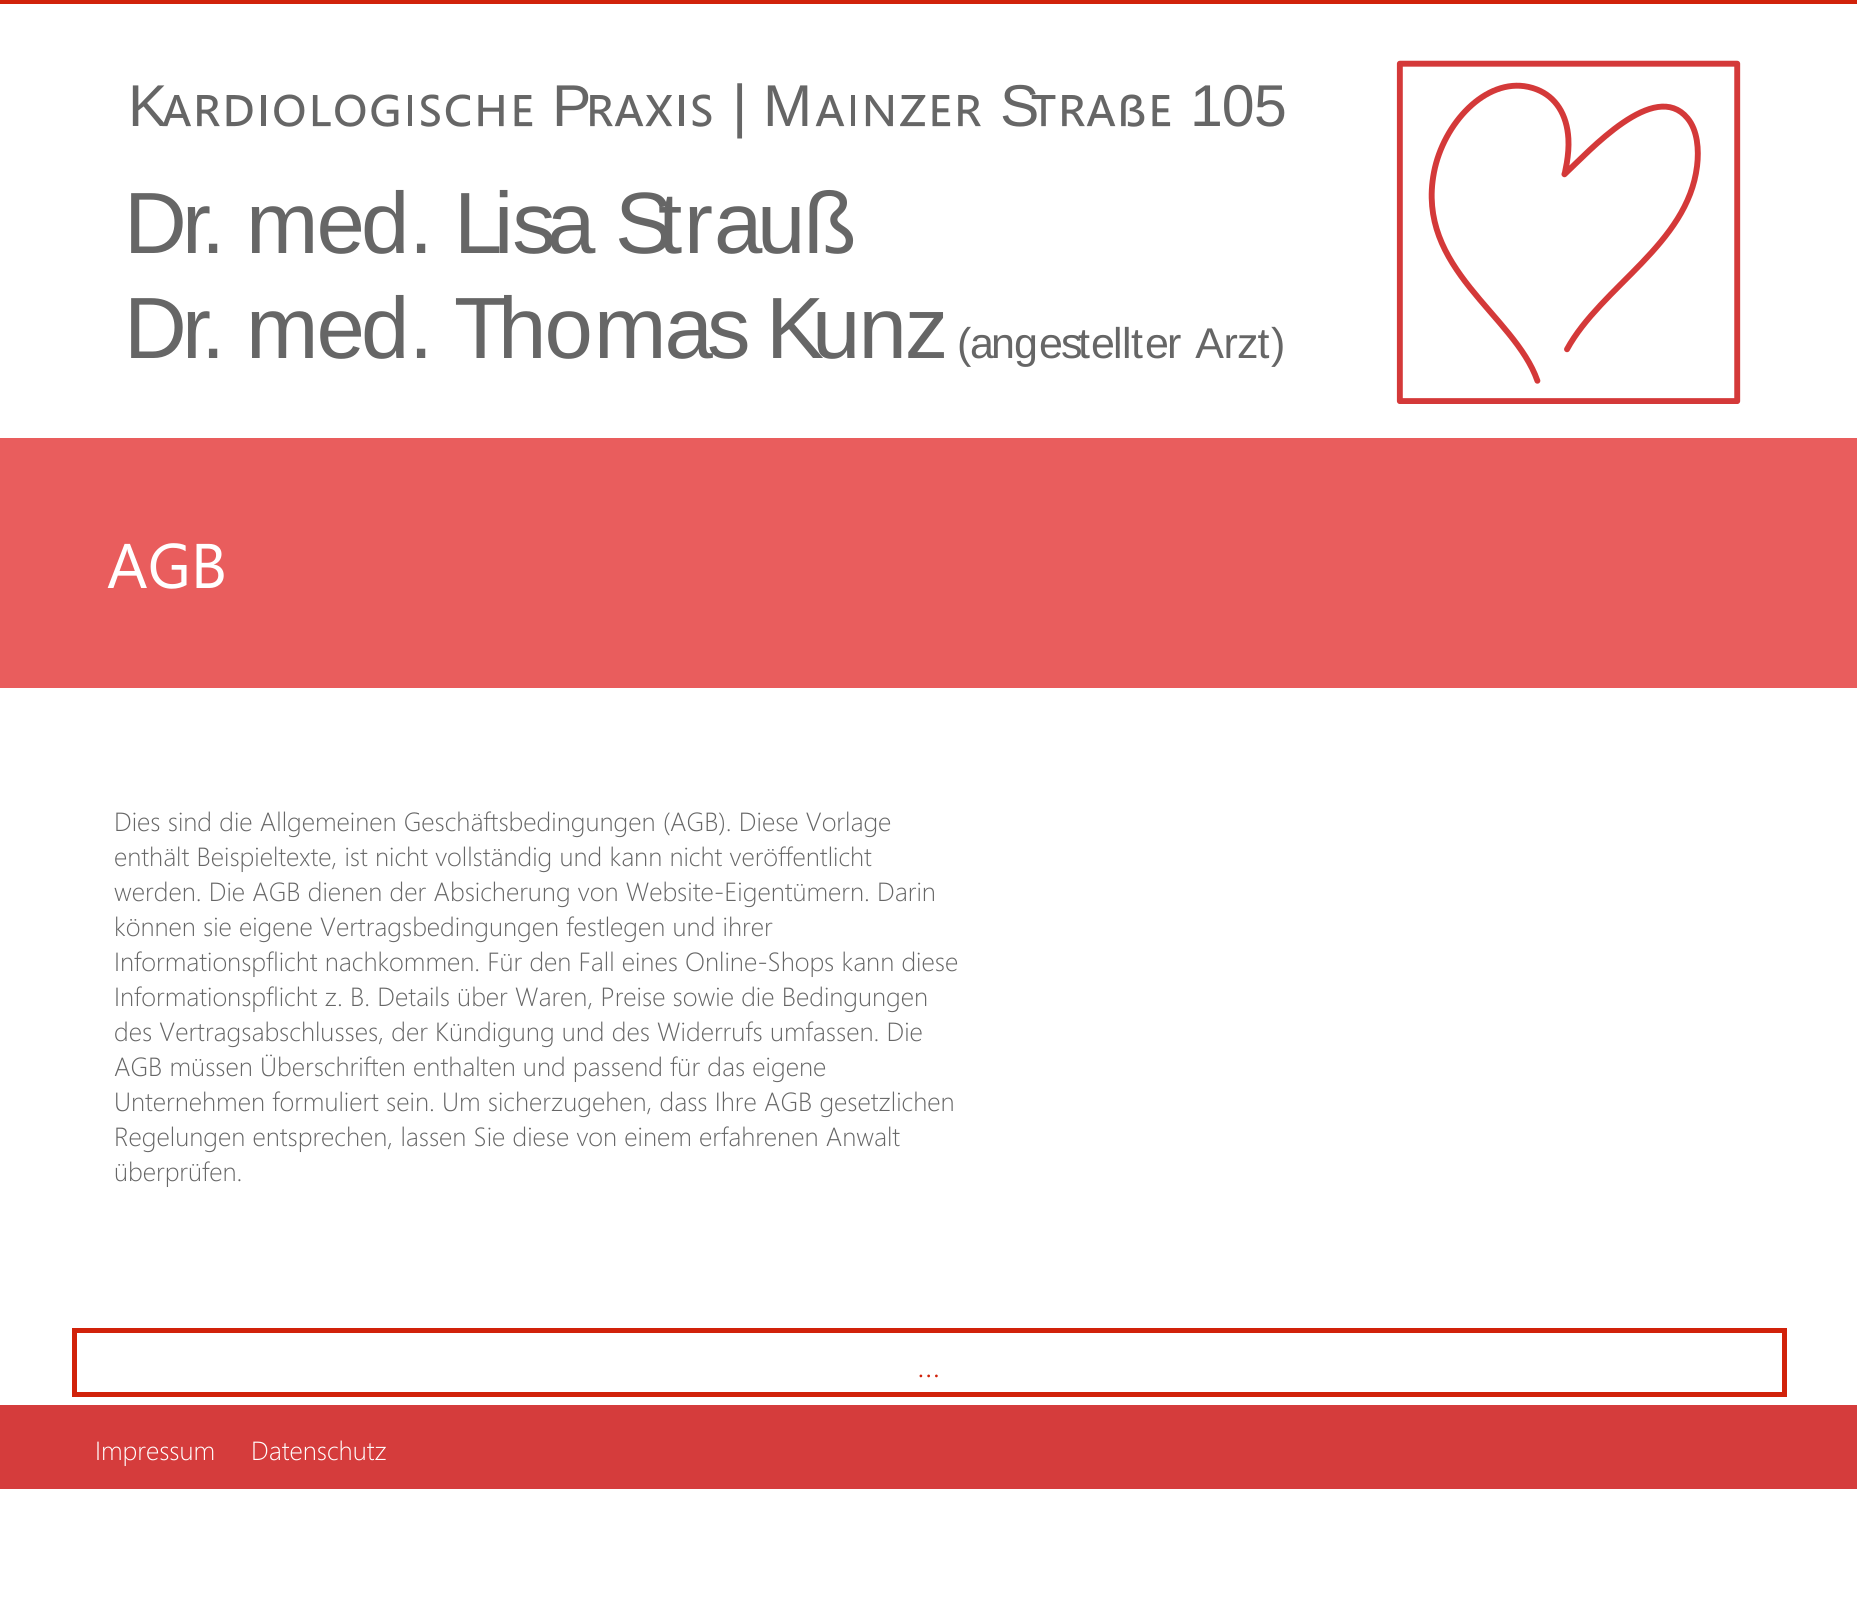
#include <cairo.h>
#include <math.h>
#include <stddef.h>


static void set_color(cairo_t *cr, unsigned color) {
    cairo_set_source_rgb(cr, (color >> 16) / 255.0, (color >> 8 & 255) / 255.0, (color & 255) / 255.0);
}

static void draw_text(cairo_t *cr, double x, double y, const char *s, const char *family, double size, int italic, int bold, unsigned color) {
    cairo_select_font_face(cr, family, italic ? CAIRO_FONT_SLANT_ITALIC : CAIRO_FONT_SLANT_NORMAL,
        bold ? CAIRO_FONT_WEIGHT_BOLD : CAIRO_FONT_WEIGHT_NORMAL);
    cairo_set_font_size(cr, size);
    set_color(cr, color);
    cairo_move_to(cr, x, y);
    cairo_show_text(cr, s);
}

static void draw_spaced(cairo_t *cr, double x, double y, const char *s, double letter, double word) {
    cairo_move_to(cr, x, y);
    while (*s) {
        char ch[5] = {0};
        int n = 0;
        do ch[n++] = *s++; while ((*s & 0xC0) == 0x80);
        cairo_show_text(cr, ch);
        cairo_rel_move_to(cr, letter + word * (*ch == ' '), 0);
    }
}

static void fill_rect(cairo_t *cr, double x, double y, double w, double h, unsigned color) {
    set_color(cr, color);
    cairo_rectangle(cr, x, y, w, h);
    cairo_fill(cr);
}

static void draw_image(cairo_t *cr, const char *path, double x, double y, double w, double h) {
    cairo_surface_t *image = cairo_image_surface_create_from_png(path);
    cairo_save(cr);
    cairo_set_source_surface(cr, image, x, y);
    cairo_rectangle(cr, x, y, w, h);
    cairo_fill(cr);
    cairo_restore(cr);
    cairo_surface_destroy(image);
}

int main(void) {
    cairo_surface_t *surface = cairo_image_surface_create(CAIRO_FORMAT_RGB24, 1857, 1600);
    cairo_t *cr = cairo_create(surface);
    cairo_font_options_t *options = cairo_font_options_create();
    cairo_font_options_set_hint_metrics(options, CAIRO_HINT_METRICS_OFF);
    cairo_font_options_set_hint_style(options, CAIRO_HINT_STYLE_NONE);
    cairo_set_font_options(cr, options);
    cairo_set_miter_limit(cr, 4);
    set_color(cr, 0xFFFFFF);
    cairo_paint(cr);
    fill_rect(cr, 0, 0, 1857, 4, 0xD1220A);
    cairo_select_font_face(cr, "Liberation Sans", CAIRO_FONT_SLANT_NORMAL, CAIRO_FONT_WEIGHT_NORMAL);
    cairo_set_font_size(cr, 87);
    set_color(cr, 0x666666);
    draw_spaced(cr, 124, 253, "D", -2, 0);
    draw_spaced(cr, 182, 253, "r", -1, 0);
    draw_spaced(cr, 201, 253, ".", -1, 0);
    draw_spaced(cr, 246, 253, "me", -2, 0);
    draw_spaced(cr, 361, 253, "d", -2, 0);
    draw_spaced(cr, 409, 253, ".", -1, 0);
    draw_spaced(cr, 454, 253, "L", -2, 0);
    draw_spaced(cr, 494, 253, "is", -1, 0);
    draw_spaced(cr, 547, 253, "a", -2, 0);
    draw_spaced(cr, 615, 253, "S", -2, 0);
    draw_spaced(cr, 658, 253, "t", -1, 0);
    draw_spaced(cr, 684, 253, "r", -1, 0);
    draw_spaced(cr, 714, 253, "a", -2, 0);
    draw_spaced(cr, 757, 253, "uß", -2, 0);
    draw_spaced(cr, 124, 358, "D", -2, 0);
    draw_spaced(cr, 182, 358, "r", -1, 0);
    draw_spaced(cr, 201, 358, ".", -1, 0);
    draw_spaced(cr, 246, 358, "me", -2, 0);
    draw_spaced(cr, 361, 358, "d", -2, 0);
    draw_spaced(cr, 409, 358, ".", -1, 0);
    draw_spaced(cr, 454, 358, "T", -2, 0);
    draw_spaced(cr, 498, 358, "ho", -2, 0);
    draw_spaced(cr, 594, 358, "ma", -2, 0);
    draw_spaced(cr, 707, 358, "s", -2, 0);
    draw_spaced(cr, 766, 358, "K", -2, 0);
    draw_spaced(cr, 812, 358, "unz", -2, 0);
    cairo_set_font_size(cr, 43);
    draw_spaced(cr, 957, 358, "(", -1, 0);
    draw_spaced(cr, 970, 358, "a", -1, 0);
    draw_spaced(cr, 991, 358, "ng", -1, 0);
    draw_spaced(cr, 1039, 358, "e", -1, 0);
    draw_spaced(cr, 1061, 358, "s", -1, 0);
    draw_text(cr, 1078, 358, "t", "Liberation Sans", 43, 0, 0, 0x666666);
    draw_spaced(cr, 1091, 358, "e", -1, 0);
    draw_spaced(cr, 1113, 358, "llt", -0.5, 0);
    draw_spaced(cr, 1145, 358, "e", -1, 0);
    draw_spaced(cr, 1167, 358, "r Ar", -0.5, 3);
    draw_spaced(cr, 1237, 358, "zt", -1, 0);
    draw_spaced(cr, 1271, 358, ")", -1, 0);
    draw_image(cr, "assets/img1.png", 162, 60, 1579, 344);
    cairo_set_font_size(cr, 59);
    draw_spaced(cr, 128, 126, "K", -1, 0);
    draw_spaced(cr, 552, 126, "P", -1, 0);
    draw_spaced(cr, 732, 126, "|", -1, 0);
    draw_spaced(cr, 763, 126, "M", -2, 0);
    draw_spaced(cr, 1000, 126, "S", -1, 0);
    draw_spaced(cr, 1190, 126, "10", -1, 0);
    draw_spaced(cr, 1254, 126, "5", -1, 0);
    fill_rect(cr, 0, 438, 1857, 250, 0xE95D5D);
    draw_text(cr, 107, 588, "AGB", "Segoe UI", 63, 0, 0, 0xFFFFFF);
    draw_text(cr, 114, 831, "Dies sind die Allgemeinen Geschäftsbedingungen (AGB). Diese Vorlage", "Segoe UI Light", 26.25, 0, 0, 0x666666);
    draw_text(cr, 114, 866, "enthält Beispieltexte, ist nicht vollständig und kann nicht veröffentlicht", "Segoe UI Light", 26.25, 0, 0, 0x666666);
    draw_text(cr, 114, 901, "werden. Die AGB dienen der Absicherung von Website-Eigentümern. Darin", "Segoe UI Light", 26.25, 0, 0, 0x666666);
    draw_text(cr, 114, 936, "können sie eigene Vertragsbedingungen festlegen und ihrer", "Segoe UI Light", 26.25, 0, 0, 0x666666);
    draw_text(cr, 114, 971, "Informationspflicht nachkommen. Für den Fall eines Online-Shops kann diese", "Segoe UI Light", 26.25, 0, 0, 0x666666);
    draw_text(cr, 114, 1006, "Informationspflicht z. B. Details über Waren, Preise sowie die Bedingungen", "Segoe UI Light", 26.25, 0, 0, 0x666666);
    draw_text(cr, 114, 1041, "des Vertragsabschlusses, der Kündigung und des Widerrufs umfassen. Die", "Segoe UI Light", 26.25, 0, 0, 0x666666);
    draw_text(cr, 114, 1076, "AGB müssen Überschriften enthalten und passend für das eigene", "Segoe UI Light", 26.25, 0, 0, 0x666666);
    draw_text(cr, 114, 1111, "Unternehmen formuliert sein. Um sicherzugehen, dass Ihre AGB gesetzlichen", "Segoe UI Light", 26.25, 0, 0, 0x666666);
    draw_text(cr, 114, 1146, "Regelungen entsprechen, lassen Sie diese von einem erfahrenen Anwalt", "Segoe UI Light", 26.25, 0, 0, 0x666666);
    draw_text(cr, 114, 1181, "überprüfen.", "Segoe UI Light", 26.25, 0, 0, 0x666666);
    cairo_rectangle(cr, 74.5, 1330.5, 1710, 64);
    set_color(cr, 0xD1220A);
    cairo_set_line_width(cr, 5);
    cairo_stroke(cr);
    draw_text(cr, 917, 1377, "...", "Segoe UI Light", 35, 0, 0, 0xD1220A);
    fill_rect(cr, 0, 1405, 1857, 84, 0xD53C3C);
    draw_text(cr, 95, 1460, "Impressum", "Segoe UI Light", 26.25, 0, 0, 0xFFFFFF);
    draw_text(cr, 251, 1460, "Datenschutz", "Segoe UI Light", 26.25, 0, 0, 0xFFFFFF);
    cairo_surface_write_to_png(surface, "output.png");
    cairo_font_options_destroy(options);
    cairo_destroy(cr);
    cairo_surface_destroy(surface);
    return 0;
}
